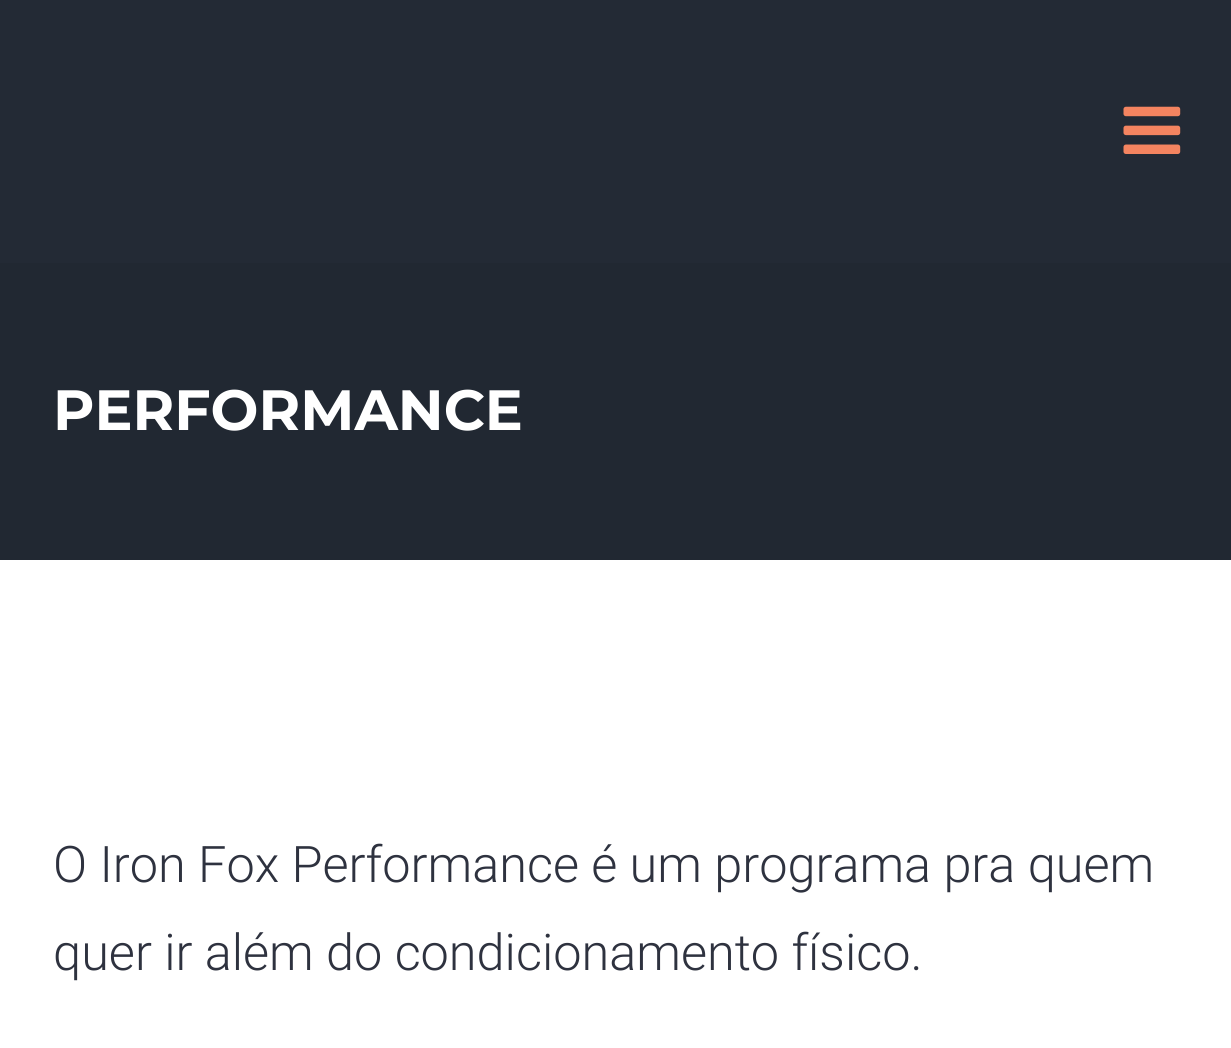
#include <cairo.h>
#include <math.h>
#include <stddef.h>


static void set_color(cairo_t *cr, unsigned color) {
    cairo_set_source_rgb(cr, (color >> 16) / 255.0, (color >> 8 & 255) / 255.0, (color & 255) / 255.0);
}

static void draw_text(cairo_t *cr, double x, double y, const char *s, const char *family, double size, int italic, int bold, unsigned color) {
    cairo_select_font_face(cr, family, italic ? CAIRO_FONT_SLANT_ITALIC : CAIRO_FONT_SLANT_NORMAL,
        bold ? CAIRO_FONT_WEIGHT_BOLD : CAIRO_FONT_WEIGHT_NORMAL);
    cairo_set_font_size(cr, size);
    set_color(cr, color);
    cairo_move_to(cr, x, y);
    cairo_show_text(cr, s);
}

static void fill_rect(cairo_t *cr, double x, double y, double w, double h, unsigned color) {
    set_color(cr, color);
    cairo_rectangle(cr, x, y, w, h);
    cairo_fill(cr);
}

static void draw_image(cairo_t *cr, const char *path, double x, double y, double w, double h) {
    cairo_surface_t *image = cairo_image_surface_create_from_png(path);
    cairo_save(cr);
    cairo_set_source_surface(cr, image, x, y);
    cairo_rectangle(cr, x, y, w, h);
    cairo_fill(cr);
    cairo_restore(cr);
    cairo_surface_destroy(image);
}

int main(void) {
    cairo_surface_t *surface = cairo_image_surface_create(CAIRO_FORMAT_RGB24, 1231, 1048);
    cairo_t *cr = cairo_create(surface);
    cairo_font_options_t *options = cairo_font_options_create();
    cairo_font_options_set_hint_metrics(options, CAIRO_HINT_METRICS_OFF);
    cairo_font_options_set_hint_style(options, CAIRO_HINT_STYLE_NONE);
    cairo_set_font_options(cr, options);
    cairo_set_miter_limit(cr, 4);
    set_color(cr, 0xFFFFFF);
    cairo_paint(cr);
    fill_rect(cr, 0, 0, 1231, 263, 0x232A35);
    draw_image(cr, "assets/img1.png", 1123, 106, 58, 48);
    fill_rect(cr, 0, 263, 1231, 297, 0x212832);
    draw_text(cr, 53, 430, "PERFORMANCE", "Montserrat", 56.75, 0, 1, 0xFFFFFF);
    draw_text(cr, 53, 882, "O Iron Fox Performance é um programa pra quem", "Roboto Light", 50.4, 0, 0, 0x2E323F);
    draw_text(cr, 53, 970, "quer ir além do condicionamento físico.", "Roboto Light", 50.4, 0, 0, 0x2E323F);
    cairo_surface_write_to_png(surface, "output.png");
    cairo_font_options_destroy(options);
    cairo_destroy(cr);
    cairo_surface_destroy(surface);
    return 0;
}
